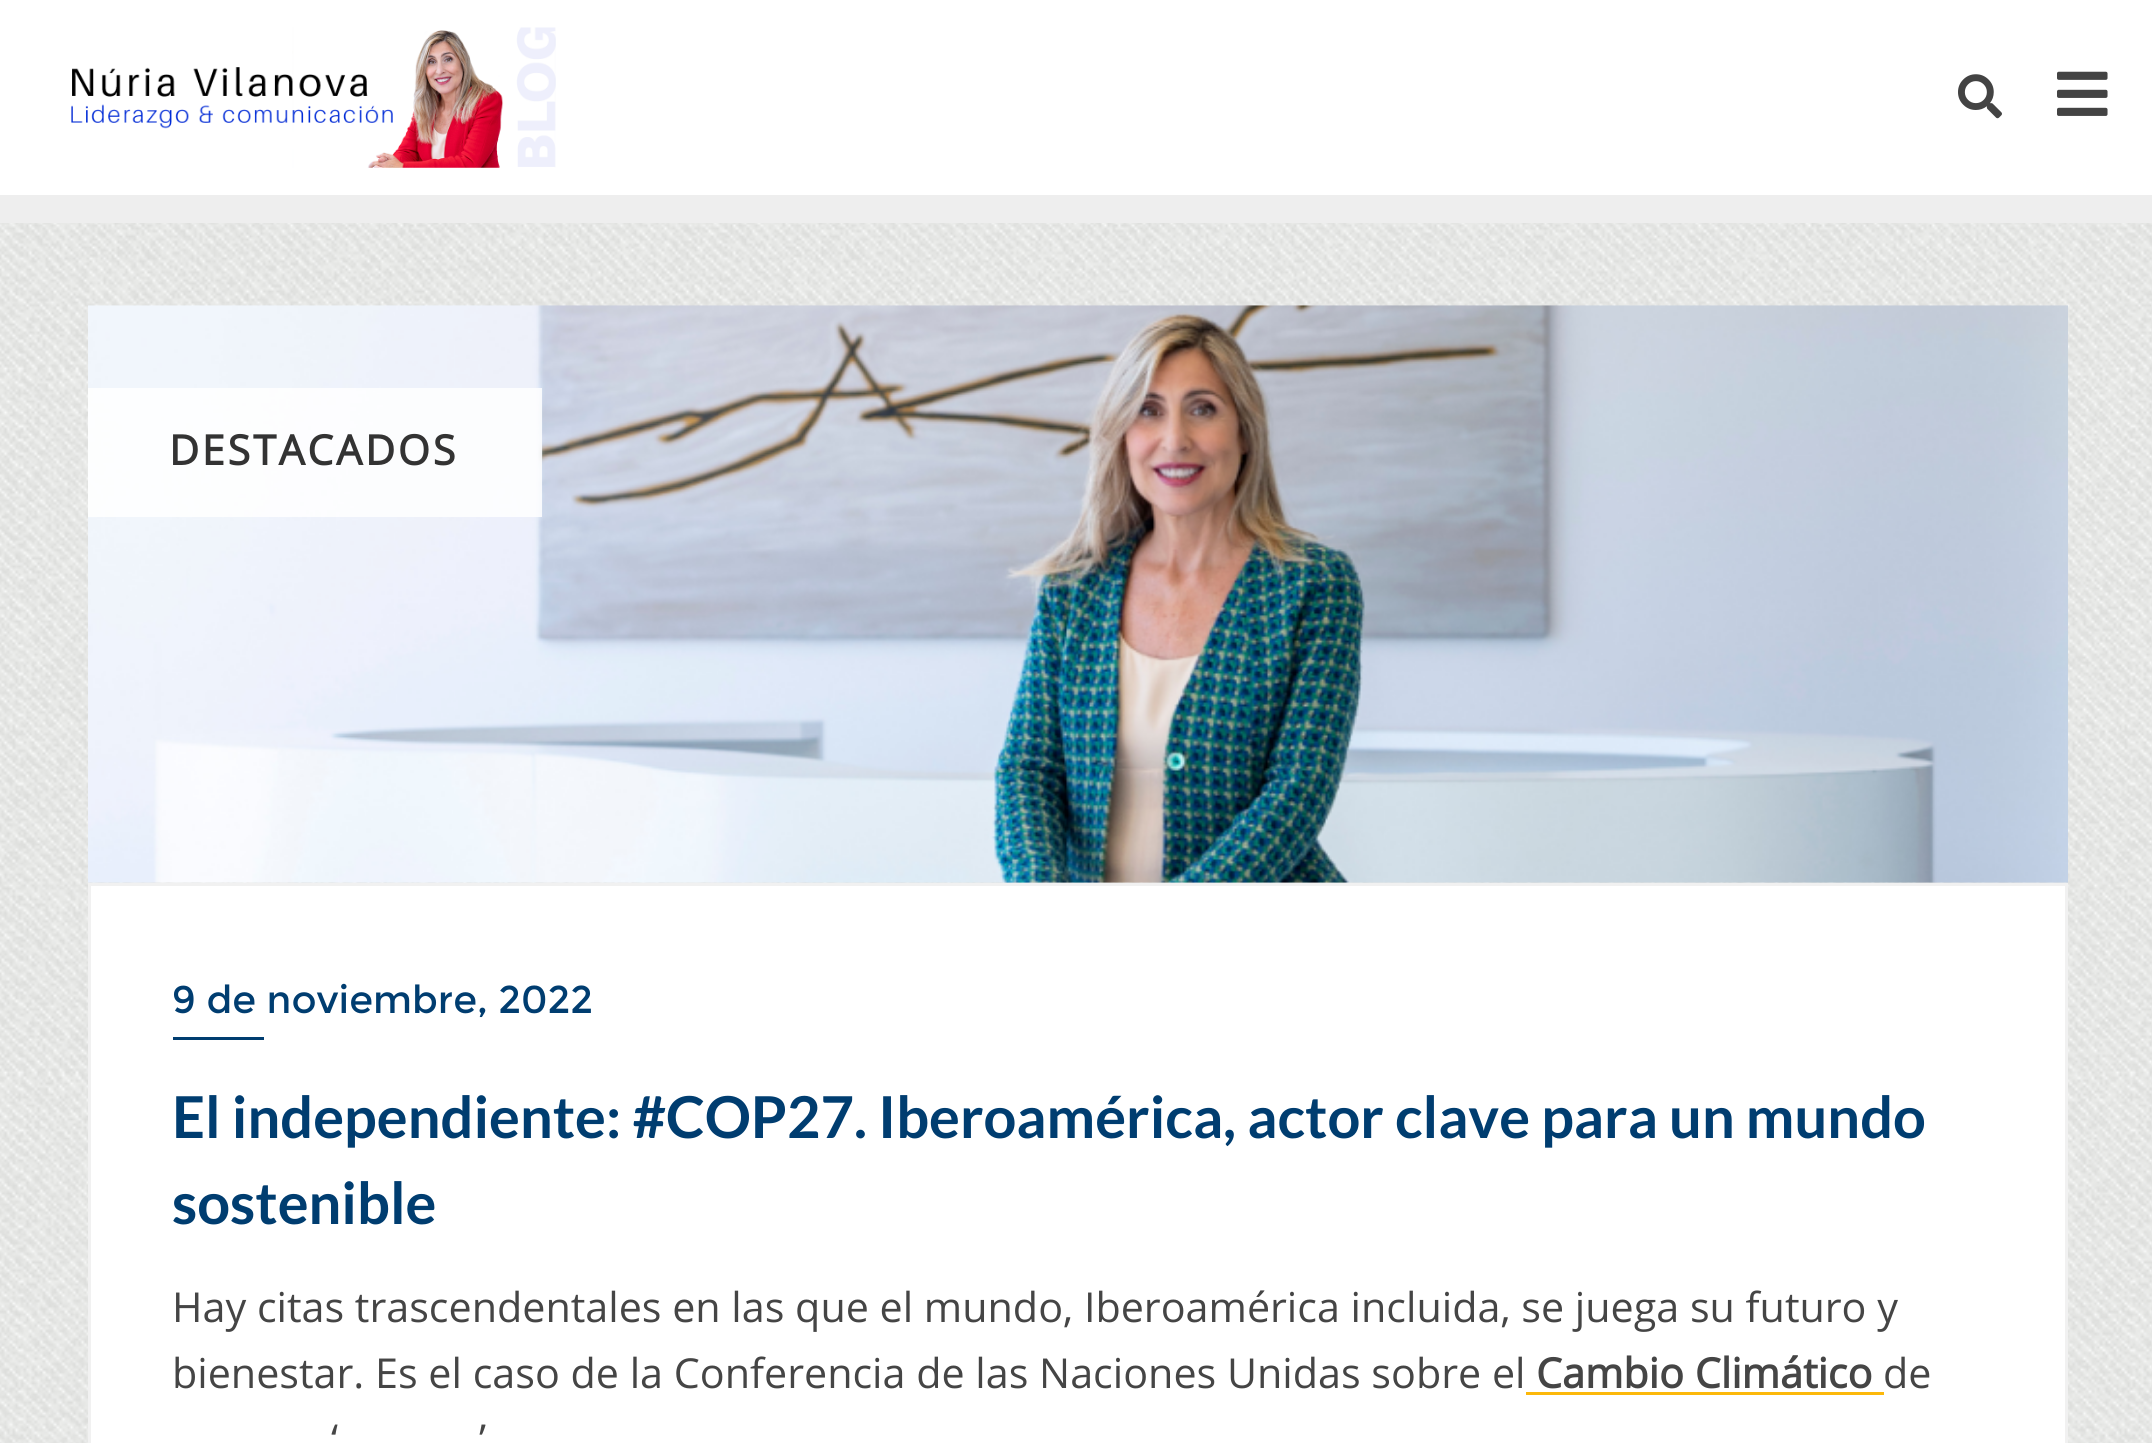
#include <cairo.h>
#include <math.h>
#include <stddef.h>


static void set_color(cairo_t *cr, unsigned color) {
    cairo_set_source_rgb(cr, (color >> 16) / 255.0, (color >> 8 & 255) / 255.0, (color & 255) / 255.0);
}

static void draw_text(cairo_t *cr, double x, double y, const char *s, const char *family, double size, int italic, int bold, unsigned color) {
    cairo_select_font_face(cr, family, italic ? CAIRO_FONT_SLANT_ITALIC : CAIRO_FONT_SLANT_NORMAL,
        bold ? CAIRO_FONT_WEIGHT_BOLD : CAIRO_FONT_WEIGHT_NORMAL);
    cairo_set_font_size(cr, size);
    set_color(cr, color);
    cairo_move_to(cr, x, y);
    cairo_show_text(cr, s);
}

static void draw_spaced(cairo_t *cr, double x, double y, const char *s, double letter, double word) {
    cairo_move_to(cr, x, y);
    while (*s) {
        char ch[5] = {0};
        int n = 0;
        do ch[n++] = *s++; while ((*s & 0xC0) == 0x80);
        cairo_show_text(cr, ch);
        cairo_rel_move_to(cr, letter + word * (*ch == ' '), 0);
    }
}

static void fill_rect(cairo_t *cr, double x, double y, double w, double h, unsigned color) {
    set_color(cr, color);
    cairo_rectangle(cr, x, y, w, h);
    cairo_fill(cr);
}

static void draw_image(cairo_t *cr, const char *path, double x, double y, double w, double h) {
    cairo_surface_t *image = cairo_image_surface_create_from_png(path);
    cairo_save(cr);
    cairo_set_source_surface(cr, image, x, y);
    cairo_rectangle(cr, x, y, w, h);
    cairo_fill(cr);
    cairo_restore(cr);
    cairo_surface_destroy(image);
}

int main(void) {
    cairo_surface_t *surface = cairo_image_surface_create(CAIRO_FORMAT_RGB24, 2152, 1443);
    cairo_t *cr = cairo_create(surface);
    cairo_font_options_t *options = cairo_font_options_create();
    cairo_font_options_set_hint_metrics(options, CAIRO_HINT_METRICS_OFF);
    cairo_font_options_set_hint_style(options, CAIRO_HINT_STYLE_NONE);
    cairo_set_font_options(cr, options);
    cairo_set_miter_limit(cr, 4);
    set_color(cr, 0xFFFFFF);
    cairo_paint(cr);
    draw_image(cr, "assets/img1.png", 0, 223, 2152, 1220);
    fill_rect(cr, 0, 195, 2152, 28, 0xEEEEEE);
    draw_image(cr, "assets/img2.png", 71, 27, 485, 141);
    draw_image(cr, "assets/img3.png", 1958, 74, 44, 45);
    draw_image(cr, "assets/img4.png", 2057, 71, 51, 45);
    draw_image(cr, "assets/img5.png", 88, 305, 1980, 578);
    cairo_set_source_rgba(cr, 1, 1, 1, 0.85);
    cairo_rectangle(cr, 88, 388, 454, 129);
    cairo_fill(cr);
    cairo_select_font_face(cr, "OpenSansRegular", CAIRO_FONT_SLANT_NORMAL, CAIRO_FONT_WEIGHT_BOLD);
    cairo_set_font_size(cr, 41.25);
    set_color(cr, 0x333333);
    draw_spaced(cr, 169, 465, "DESTACADOS", 2.75, 0);
    set_color(cr, 0xFFFFFF);
    cairo_rectangle(cr, 89.5, 884.5, 1977, 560);
    cairo_fill_preserve(cr);
    set_color(cr, 0xF1F1F1);
    cairo_set_line_width(cr, 3);
    cairo_stroke(cr);
    draw_text(cr, 172, 1013, "9 de noviembre, 2022", "Montserrat", 38.5, 0, 0, 0x003D70);
    fill_rect(cr, 173, 1037, 91, 3, 0x003D70);
    draw_text(cr, 172, 1138, "El independiente: #COP27. Iberoamérica, actor clave para un mundo", "Lato", 57.75, 0, 1, 0x003D70);
    draw_text(cr, 172, 1224, "sostenible", "Lato", 57.75, 0, 1, 0x003D70);
    draw_text(cr, 172, 1322, "Hay citas trascendentales en las que el mundo, Iberoamérica incluida, se juega su futuro y", "OpenSansRegular", 41.25, 0, 0, 0x454545);
    draw_text(cr, 172, 1388, "bienestar. Es el caso de la Conferencia de las Naciones Unidas sobre el", "OpenSansRegular", 41.25, 0, 0, 0x454545);
    draw_text(cr, 1536, 1388, "Cambio Climático", "OpenSansRegular", 41.25, 0, 1, 0x454545);
    fill_rect(cr, 1526, 1392, 358, 3, 0xFCB80B);
    draw_text(cr, 1883, 1388, "de", "OpenSansRegular", 41.25, 0, 0, 0x454545);
    draw_text(cr, 331, 1454, "‘", "OpenSansRegular", 41.25, 0, 0, 0x454545);
    draw_text(cr, 479, 1454, "’", "OpenSansRegular", 41.25, 0, 0, 0x454545);
    cairo_surface_write_to_png(surface, "output.png");
    cairo_font_options_destroy(options);
    cairo_destroy(cr);
    cairo_surface_destroy(surface);
    return 0;
}
